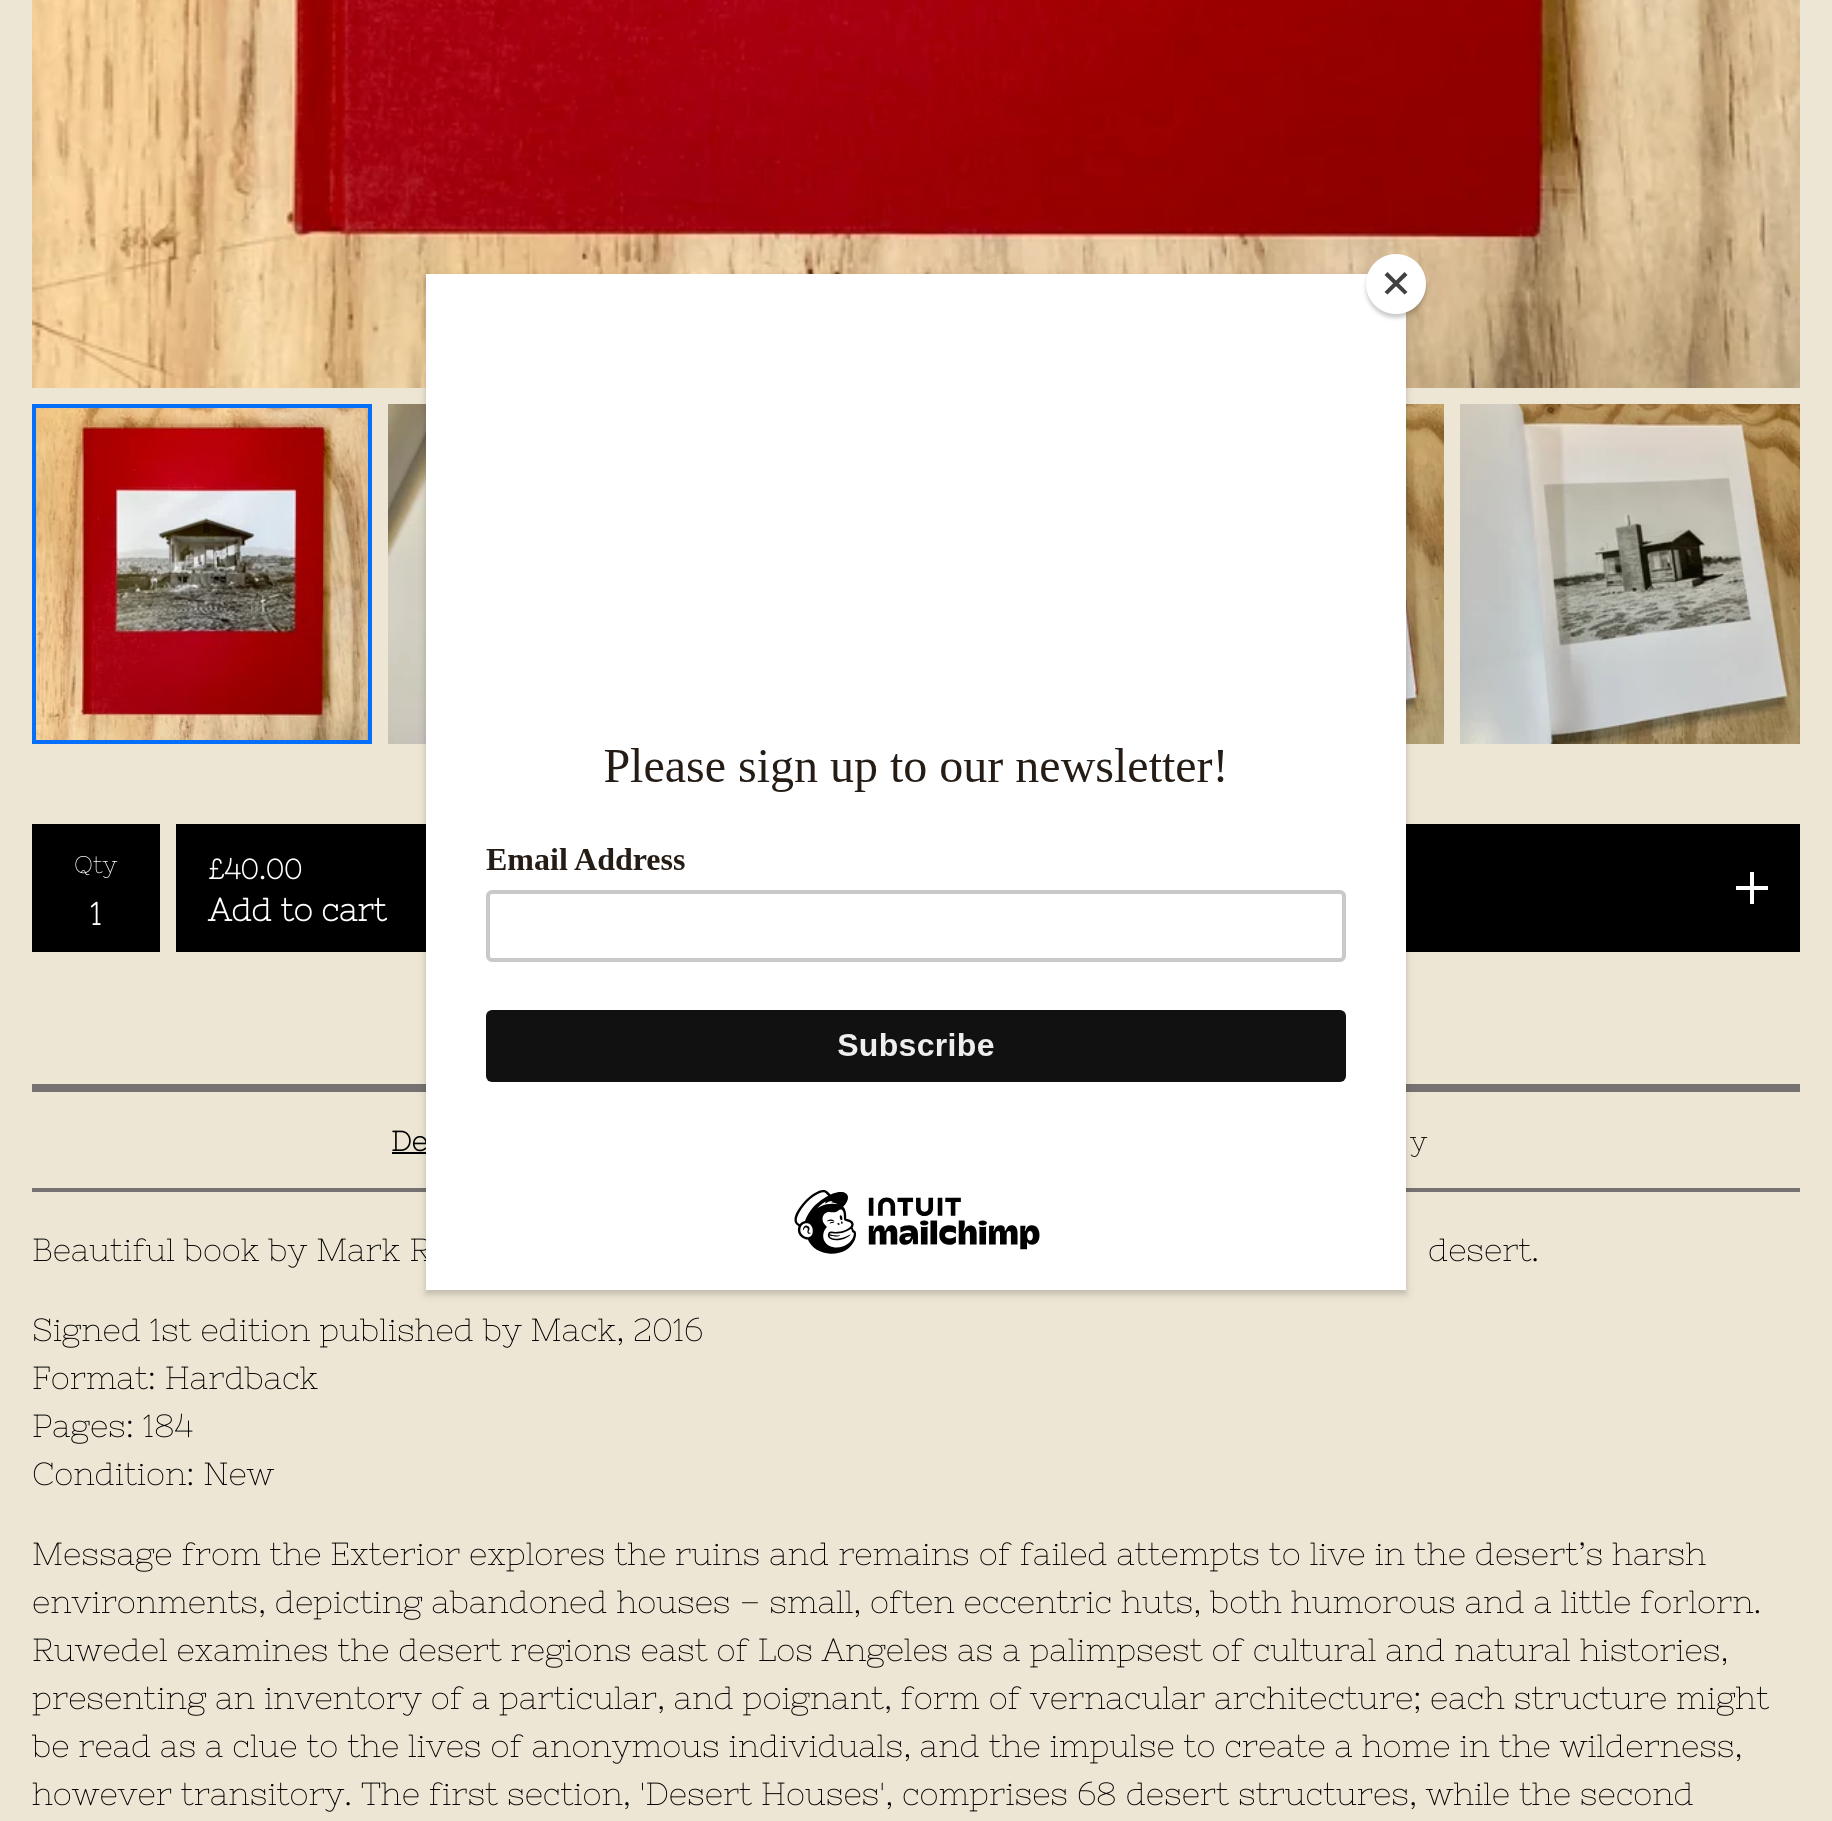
#include <cairo.h>
#include <math.h>
#include <stddef.h>


static void set_color(cairo_t *cr, unsigned color) {
    cairo_set_source_rgb(cr, (color >> 16) / 255.0, (color >> 8 & 255) / 255.0, (color & 255) / 255.0);
}

static void draw_text(cairo_t *cr, double x, double y, const char *s, const char *family, double size, int italic, int bold, unsigned color) {
    cairo_select_font_face(cr, family, italic ? CAIRO_FONT_SLANT_ITALIC : CAIRO_FONT_SLANT_NORMAL,
        bold ? CAIRO_FONT_WEIGHT_BOLD : CAIRO_FONT_WEIGHT_NORMAL);
    cairo_set_font_size(cr, size);
    set_color(cr, color);
    cairo_move_to(cr, x, y);
    cairo_show_text(cr, s);
}

static void fill_rect(cairo_t *cr, double x, double y, double w, double h, unsigned color) {
    set_color(cr, color);
    cairo_rectangle(cr, x, y, w, h);
    cairo_fill(cr);
}

static void rounded_rect(cairo_t *cr, double x, double y, double w, double h, double r) {
    cairo_new_sub_path(cr);
    cairo_arc(cr, x + w - r, y + h - r, r, 0, M_PI / 2);
    cairo_arc(cr, x + r, y + h - r, r, M_PI / 2, M_PI);
    cairo_arc(cr, x + r, y + r, r, M_PI, 1.5 * M_PI);
    cairo_arc(cr, x + w - r, y + r, r, 1.5 * M_PI, 2 * M_PI);
    cairo_close_path(cr);
}

static void draw_shadow(cairo_t *cr, double x, double y, double w, double h, double r, double blur, double alpha) {
    cairo_push_group_with_content(cr, CAIRO_CONTENT_ALPHA);
    cairo_set_operator(cr, CAIRO_OPERATOR_SOURCE);
    for (int i = 15; i >= -15 && fmin(w, h) + blur * i / 3 > 0; i -= 2) {
        double e = blur * i / 6;
        cairo_set_source_rgba(cr, 0, 0, 0, alpha * erfc((i - 1) / 8.5) / 2);
        rounded_rect(cr, x - e, y - e, w + 2 * e, h + 2 * e, fmax(0, fmin(r + e + blur * .6, fmin(w, h) / 2 + e)));
        cairo_fill(cr);
    }
    cairo_pattern_t *soft = cairo_pop_group(cr);
    cairo_mask(cr, soft);
    cairo_pattern_destroy(soft);
}

static void draw_image(cairo_t *cr, const char *path, double x, double y, double w, double h) {
    cairo_surface_t *image = cairo_image_surface_create_from_png(path);
    cairo_save(cr);
    cairo_set_source_surface(cr, image, x, y);
    cairo_rectangle(cr, x, y, w, h);
    cairo_fill(cr);
    cairo_restore(cr);
    cairo_surface_destroy(image);
}

int main(void) {
    cairo_surface_t *surface = cairo_image_surface_create(CAIRO_FORMAT_RGB24, 1832, 1821);
    cairo_t *cr = cairo_create(surface);
    cairo_font_options_t *options = cairo_font_options_create();
    cairo_font_options_set_hint_metrics(options, CAIRO_HINT_METRICS_OFF);
    cairo_font_options_set_hint_style(options, CAIRO_HINT_STYLE_NONE);
    cairo_set_font_options(cr, options);
    cairo_set_miter_limit(cr, 4);
    set_color(cr, 0xEDE6D4);
    cairo_paint(cr);
    draw_image(cr, "assets/img2.png", 32, 0, 1768, 388);
    draw_image(cr, "assets/img4.png", 388, 404, 38, 340);
    draw_image(cr, "assets/img5.png", 1406, 404, 38, 340);
    fill_rect(cr, 176, 824, 1624, 128, 0x000000);
    fill_rect(cr, 32, 1084, 1768, 8, 0x777272);
    fill_rect(cr, 32, 1188, 1768, 4, 0x777272);
    fill_rect(cr, 392, 1152, 34, 2, 0x000000);
    set_color(cr, 0x000000);
    draw_shadow(cr, 426, 278, 980, 1016, 0, 4, 0.2);
    draw_text(cr, 391, 1151, "De", "Nixie One", 28, 0, 1, 0x000000);
    draw_text(cr, 32, 1261, "Beautiful book by Mark R", "Nixie One", 32, 0, 0, 0x000000);
    draw_image(cr, "assets/img1.png", 426, 274, 980, 1016);
    set_color(cr, 0x000000);
    draw_shadow(cr, 1366, 258, 60, 60, 30, 2, 0.2);
    set_color(cr, 0xFFFFFF);
    cairo_arc(cr, 1396, 284, 30, 0, 2 * M_PI);
    cairo_fill(cr);
    set_color(cr, 0x414141);
    cairo_new_path(cr);
    cairo_move_to(cr, 1404.5, 272);
    cairo_line_to(cr, 1407.5, 275);
    cairo_line_to(cr, 1387.5, 294.5);
    cairo_line_to(cr, 1384.5, 292);
    cairo_close_path(cr);
    cairo_fill(cr);
    cairo_new_path(cr);
    cairo_move_to(cr, 1384.5, 275);
    cairo_line_to(cr, 1387.5, 272);
    cairo_line_to(cr, 1407.5, 292);
    cairo_line_to(cr, 1404.5, 294.5);
    cairo_close_path(cr);
    cairo_fill(cr);
    draw_image(cr, "assets/img3.png", 36, 408, 332, 332);
    cairo_rectangle(cr, 34, 406, 336, 336);
    set_color(cr, 0x056FFA);
    cairo_set_line_width(cr, 4);
    cairo_stroke(cr);
    draw_image(cr, "assets/img6.png", 1460, 404, 340, 340);
    fill_rect(cr, 32, 824, 128, 128, 0x000000);
    draw_text(cr, 74, 873, "Qty", "Nixie One", 24, 0, 0, 0xFFFFFF);
    draw_text(cr, 90, 925, "1", "Nixie One", 32, 0, 1, 0xFFFFFF);
    draw_text(cr, 208, 879, "£40.00", "Nixie One", 28, 0, 1, 0xFFFFFF);
    draw_image(cr, "assets/img7.png", 1736, 872, 32, 32);
    draw_text(cr, 208, 921, "Add to cart", "Nixie One", 32, 0, 1, 0xFFFFFF);
    draw_text(cr, 1410, 1151, "y", "Nixie One", 28, 0, 0, 0x000000);
    draw_text(cr, 1428, 1261, "desert.", "Nixie One", 32, 0, 0, 0x000000);
    draw_text(cr, 32, 1341, "Signed 1st edition published by Mack, 2016", "Nixie One", 32, 0, 0, 0x000000);
    draw_text(cr, 32, 1389, "Format: Hardback", "Nixie One", 32, 0, 0, 0x000000);
    draw_text(cr, 32, 1437, "Pages: 184", "Nixie One", 32, 0, 0, 0x000000);
    draw_text(cr, 32, 1485, "Condition: New", "Nixie One", 32, 0, 0, 0x000000);
    draw_text(cr, 32, 1565, "Message from the Exterior explores the ruins and remains of failed attempts to live in the desert’s harsh", "Nixie One", 32, 0, 0, 0x000000);
    draw_text(cr, 32, 1613, "environments, depicting abandoned houses – small, often eccentric huts, both humorous and a little forlorn.", "Nixie One", 32, 0, 0, 0x000000);
    draw_text(cr, 32, 1661, "Ruwedel examines the desert regions east of Los Angeles as a palimpsest of cultural and natural histories,", "Nixie One", 32, 0, 0, 0x000000);
    draw_text(cr, 32, 1709, "presenting an inventory of a particular, and poignant, form of vernacular architecture; each structure might", "Nixie One", 32, 0, 0, 0x000000);
    draw_text(cr, 32, 1757, "be read as a clue to the lives of anonymous individuals, and the impulse to create a home in the wilderness,", "Nixie One", 32, 0, 0, 0x000000);
    draw_text(cr, 32, 1805, "however transitory. The first section, 'Desert Houses', comprises 68 desert structures, while the second", "Nixie One", 32, 0, 0, 0x000000);
    cairo_surface_write_to_png(surface, "output.png");
    cairo_font_options_destroy(options);
    cairo_destroy(cr);
    cairo_surface_destroy(surface);
    return 0;
}
